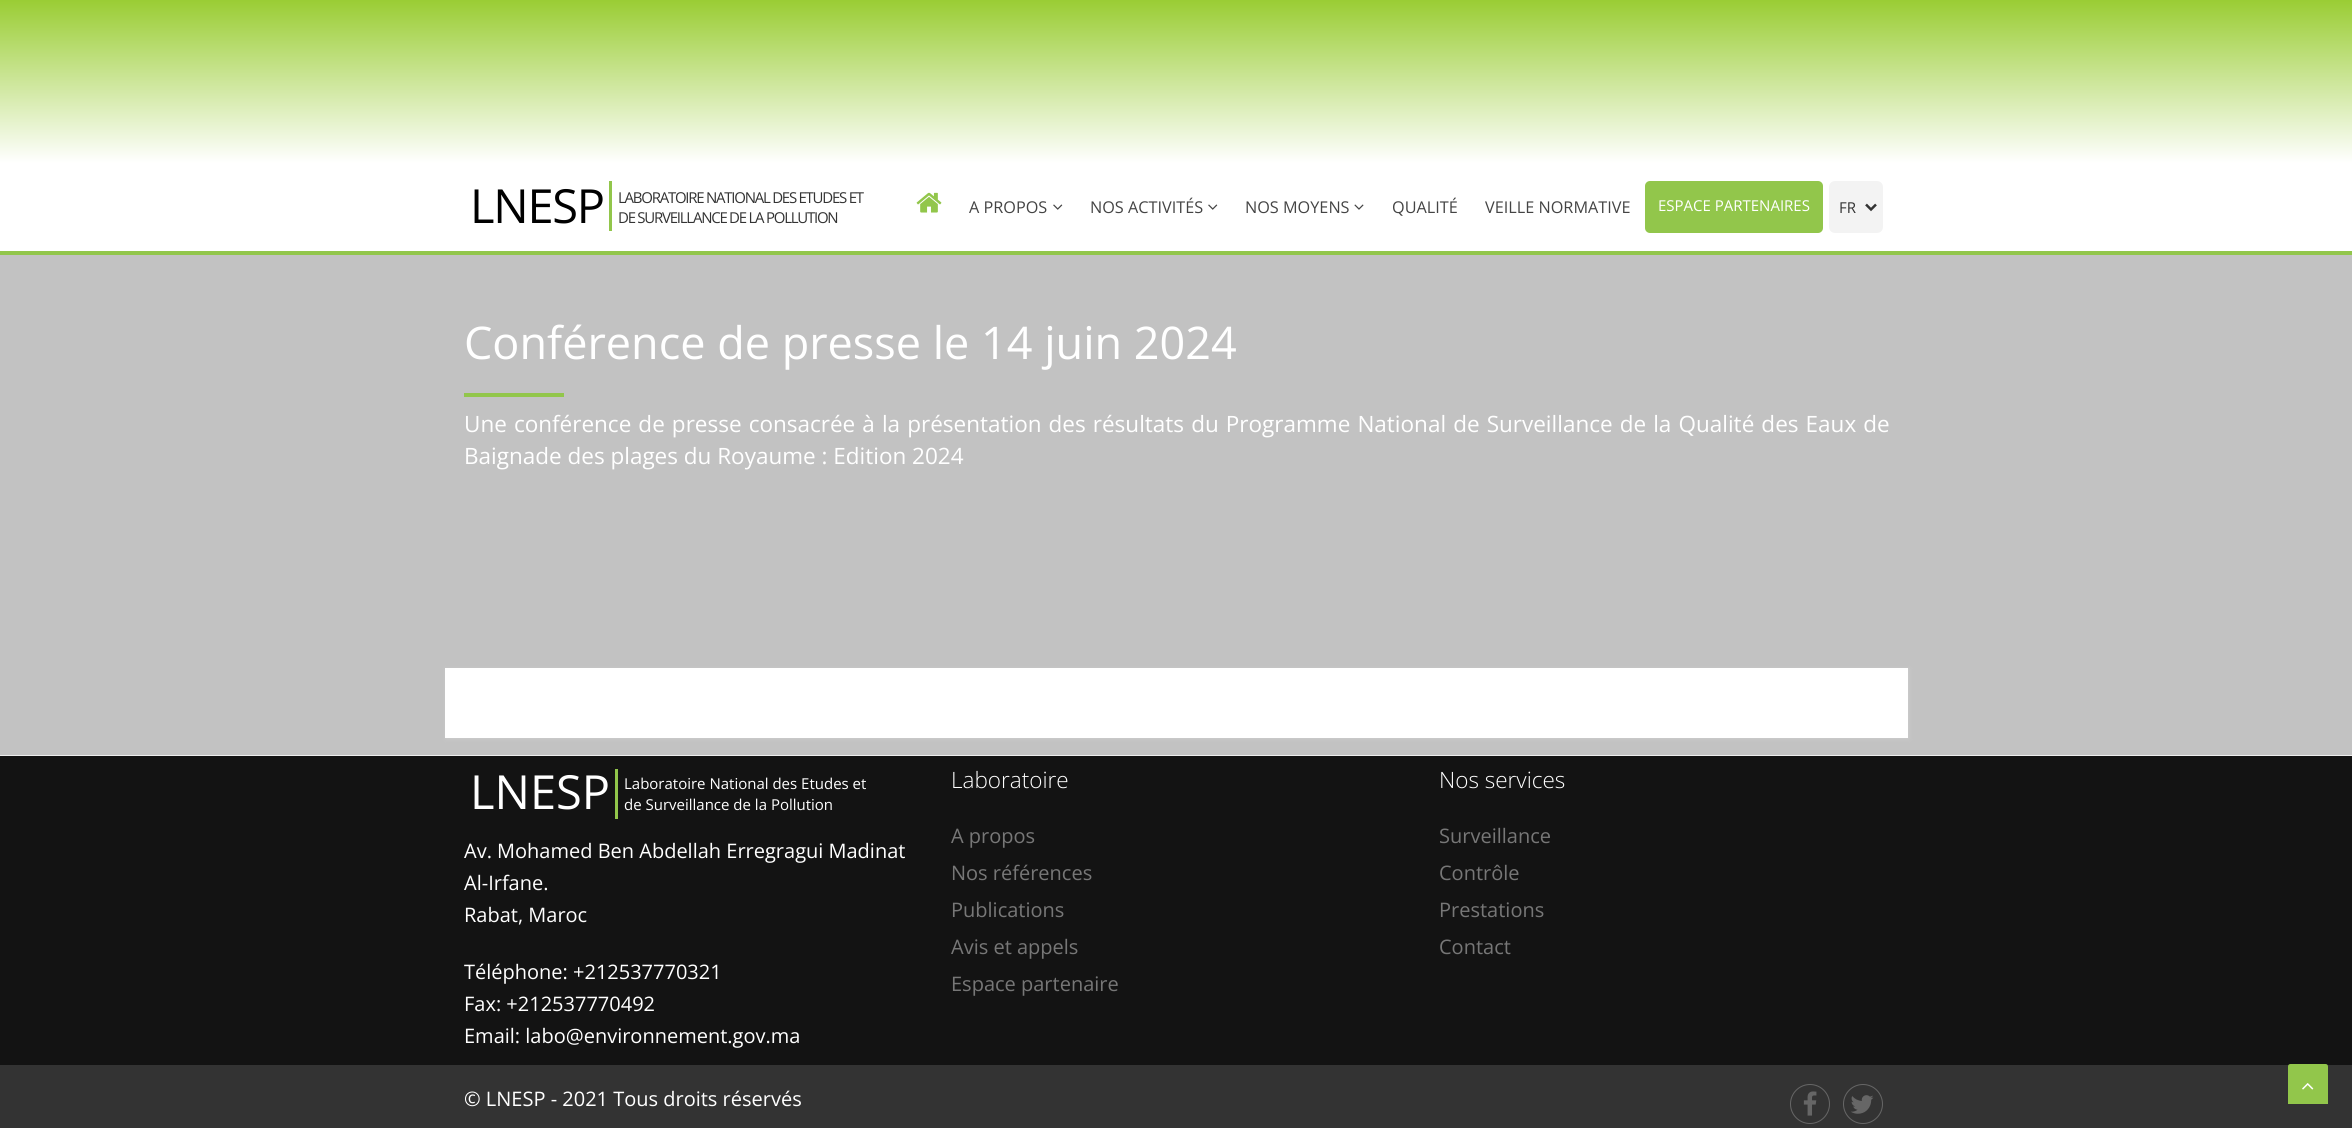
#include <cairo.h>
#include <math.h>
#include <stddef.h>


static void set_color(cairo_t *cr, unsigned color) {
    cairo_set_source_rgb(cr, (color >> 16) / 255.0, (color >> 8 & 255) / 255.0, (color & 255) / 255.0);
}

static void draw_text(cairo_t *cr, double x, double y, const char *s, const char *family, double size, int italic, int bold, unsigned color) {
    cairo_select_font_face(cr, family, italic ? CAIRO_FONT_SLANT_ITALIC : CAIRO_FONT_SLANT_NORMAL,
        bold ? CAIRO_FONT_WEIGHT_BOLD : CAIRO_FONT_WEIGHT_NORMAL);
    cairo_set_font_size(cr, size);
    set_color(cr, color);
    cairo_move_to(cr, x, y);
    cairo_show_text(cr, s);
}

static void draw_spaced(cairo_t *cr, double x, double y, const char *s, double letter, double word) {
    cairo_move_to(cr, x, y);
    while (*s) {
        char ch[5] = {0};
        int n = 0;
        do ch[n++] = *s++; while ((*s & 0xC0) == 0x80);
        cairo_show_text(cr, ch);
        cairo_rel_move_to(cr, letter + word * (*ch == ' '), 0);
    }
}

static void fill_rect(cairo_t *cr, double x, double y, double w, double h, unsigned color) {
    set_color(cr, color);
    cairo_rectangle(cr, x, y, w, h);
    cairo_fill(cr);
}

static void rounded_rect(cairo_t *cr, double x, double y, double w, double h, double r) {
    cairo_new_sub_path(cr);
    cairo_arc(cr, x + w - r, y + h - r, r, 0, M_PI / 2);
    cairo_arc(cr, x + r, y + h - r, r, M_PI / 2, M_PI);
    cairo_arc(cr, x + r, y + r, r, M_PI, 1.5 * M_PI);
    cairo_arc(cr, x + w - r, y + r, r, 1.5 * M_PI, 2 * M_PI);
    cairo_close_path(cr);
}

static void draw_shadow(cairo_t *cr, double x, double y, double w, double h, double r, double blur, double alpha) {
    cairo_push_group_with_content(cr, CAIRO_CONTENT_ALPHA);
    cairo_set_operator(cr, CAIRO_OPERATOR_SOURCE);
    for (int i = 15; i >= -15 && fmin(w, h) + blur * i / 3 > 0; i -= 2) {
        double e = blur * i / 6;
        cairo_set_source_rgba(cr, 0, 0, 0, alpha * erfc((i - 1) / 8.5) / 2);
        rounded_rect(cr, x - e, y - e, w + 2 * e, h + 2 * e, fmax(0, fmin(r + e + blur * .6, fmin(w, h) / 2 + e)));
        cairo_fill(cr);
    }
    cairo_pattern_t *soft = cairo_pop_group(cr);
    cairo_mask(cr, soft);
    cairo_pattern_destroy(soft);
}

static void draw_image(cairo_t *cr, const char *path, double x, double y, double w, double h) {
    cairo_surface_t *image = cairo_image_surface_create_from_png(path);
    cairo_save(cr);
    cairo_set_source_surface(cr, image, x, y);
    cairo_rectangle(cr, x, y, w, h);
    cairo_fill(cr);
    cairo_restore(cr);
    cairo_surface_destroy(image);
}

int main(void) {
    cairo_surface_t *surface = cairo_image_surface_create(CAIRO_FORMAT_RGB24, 2352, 1128);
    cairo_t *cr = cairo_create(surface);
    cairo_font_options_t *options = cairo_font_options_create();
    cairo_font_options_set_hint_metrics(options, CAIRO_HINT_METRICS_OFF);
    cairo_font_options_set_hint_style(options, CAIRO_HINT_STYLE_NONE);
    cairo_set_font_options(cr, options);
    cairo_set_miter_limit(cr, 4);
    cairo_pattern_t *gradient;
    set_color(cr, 0xEEEEEE);
    cairo_paint(cr);
    gradient = cairo_pattern_create_linear(1176, 0, 1176, 163);
    cairo_pattern_add_color_stop_rgba(gradient, 0, 0.604, 0.804, 0.204, 1);
    cairo_pattern_add_color_stop_rgba(gradient, 1, 1, 1, 1, 1);
    cairo_set_source(cr, gradient);
    cairo_pattern_destroy(gradient);
    cairo_rectangle(cr, 0, 0, 2352, 163);
    cairo_fill(cr);
    fill_rect(cr, 0, 163, 2352, 88, 0xFFFFFF);
    fill_rect(cr, 0, 251, 2352, 4, 0x92C64B);
    fill_rect(cr, 609, 181, 3, 50, 0x92C64B);
    cairo_select_font_face(cr, "Open Sans", CAIRO_FONT_SLANT_NORMAL, CAIRO_FONT_WEIGHT_NORMAL);
    cairo_set_font_size(cr, 47);
    set_color(cr, 0x000000);
    draw_spaced(cr, 470, 223, "LNESP", -1.25, 0);
    cairo_set_font_size(cr, 15);
    set_color(cr, 0x333333);
    draw_spaced(cr, 618, 203, "LABORATOIRE NATIONAL DES ETUDES ET", -1.25, 0);
    draw_spaced(cr, 618, 223, "DE SURVEILLANCE DE LA POLLUTION", -1.25, 0);
    draw_image(cr, "assets/img1.png", 916, 192, 26, 21);
    draw_text(cr, 969, 213, "A PROPOS", "Open Sans", 16.25, 0, 0, 0x444444);
    draw_image(cr, "assets/img2.png", 1053, 204, 10, 6);
    draw_text(cr, 1090, 213, "NOS ACTIVITÉS", "Open Sans", 16.25, 0, 0, 0x444444);
    draw_image(cr, "assets/img2.png", 1208, 204, 10, 6);
    draw_text(cr, 1245, 213, "NOS MOYENS", "Open Sans", 16.25, 0, 0, 0x444444);
    draw_image(cr, "assets/img3.png", 1354, 204, 10, 6);
    draw_text(cr, 1392, 213, "QUALITÉ", "Open Sans", 16.25, 0, 0, 0x444444);
    draw_text(cr, 1485, 213, "VEILLE NORMATIVE", "Open Sans", 16.25, 0, 0, 0x444444);
    set_color(cr, 0x92C64B);
    rounded_rect(cr, 1645, 181, 178, 52, 5);
    cairo_fill(cr);
    draw_text(cr, 1658, 211, "ESPACE PARTENAIRES", "Open Sans", 15, 0, 0, 0xFFFFFF);
    set_color(cr, 0xF3F3F3);
    rounded_rect(cr, 1829, 181, 54, 52, 6);
    cairo_fill(cr);
    cairo_new_path(cr);
    cairo_move_to(cr, 1866, 204.5);
    cairo_line_to(cr, 1871, 209.5);
    cairo_line_to(cr, 1876, 204.5);
    set_color(cr, 0x333333);
    cairo_set_line_width(cr, 2.5);
    cairo_stroke(cr);
    draw_text(cr, 1839, 213, "FR", "Open Sans", 15, 0, 0, 0x333333);
    fill_rect(cr, 0, 255, 2352, 500, 0xC2C2C2);
    draw_text(cr, 464, 359, "Conférence de presse le 14 juin 2024", "Open Sans", 45, 0, 0, 0xFFFFFF);
    fill_rect(cr, 464, 393, 100, 4, 0x92C64B);
    cairo_set_font_size(cr, 22.5);
    set_color(cr, 0xFFFFFF);
    draw_spaced(cr, 464, 432, "Une conférence de presse consacrée à la présentation des résultats du Programme National de Surveillance de la Qualité des Eaux de", 0, 1.25);
    draw_text(cr, 464, 464, "Baignade des plages du Royaume : Edition 2024", "Open Sans", 22.5, 0, 0, 0xFFFFFF);
    set_color(cr, 0xCCCCCC);
    draw_shadow(cr, 446, 669, 1463, 70, 0, 2, 1);
    fill_rect(cr, 445, 668, 1463, 70, 0xFFFFFF);
    fill_rect(cr, 0, 756, 2352, 309, 0x131313);
    fill_rect(cr, 615, 769, 3, 50, 0x92C64B);
    draw_text(cr, 470, 809, "LNESP", "Open Sans", 47, 0, 0, 0xFFFFFF);
    draw_text(cr, 624, 789, "Laboratoire National des Etudes et", "Open Sans", 15, 0, 0, 0xFFFFFF);
    draw_text(cr, 624, 810, "de Surveillance de la Pollution", "Open Sans", 15, 0, 0, 0xFFFFFF);
    draw_text(cr, 464, 858, "Av. Mohamed Ben Abdellah Erregragui Madinat", "Open Sans", 20, 0, 0, 0xFFFFFF);
    draw_text(cr, 464, 890, "Al-Irfane.", "Open Sans", 20, 0, 0, 0xFFFFFF);
    draw_text(cr, 464, 922, "Rabat, Maroc", "Open Sans", 20, 0, 0, 0xFFFFFF);
    draw_text(cr, 464, 979, "Téléphone: +212537770321", "Open Sans", 20, 0, 0, 0xFFFFFF);
    draw_text(cr, 464, 1011, "Fax: +212537770492", "Open Sans", 20, 0, 0, 0xFFFFFF);
    draw_text(cr, 464, 1043, "Email: labo@environnement.gov.ma", "Open Sans", 20, 0, 0, 0xFFFFFF);
    draw_text(cr, 951, 788, "Laboratoire", "Open Sans Light", 22.5, 0, 0, 0xFFFFFF);
    draw_text(cr, 951, 843, "A propos", "Open Sans", 20, 0, 0, 0x777777);
    draw_text(cr, 951, 880, "Nos références", "Open Sans", 20, 0, 0, 0x777777);
    draw_text(cr, 951, 917, "Publications", "Open Sans", 20, 0, 0, 0x777777);
    draw_text(cr, 951, 954, "Avis et appels", "Open Sans", 20, 0, 0, 0x777777);
    draw_text(cr, 951, 991, "Espace partenaire", "Open Sans", 20, 0, 0, 0x777777);
    draw_text(cr, 1439, 788, "Nos services", "Open Sans Light", 22.5, 0, 0, 0xFFFFFF);
    draw_text(cr, 1439, 843, "Surveillance", "Open Sans", 20, 0, 0, 0x777777);
    draw_text(cr, 1439, 880, "Contrôle", "Open Sans", 20, 0, 0, 0x777777);
    draw_text(cr, 1439, 917, "Prestations", "Open Sans", 20, 0, 0, 0x777777);
    draw_text(cr, 1439, 954, "Contact", "Open Sans", 20, 0, 0, 0x777777);
    fill_rect(cr, 0, 1065, 2352, 63, 0x333333);
    draw_text(cr, 464, 1106, "© LNESP - 2021 Tous droits réservés", "Open Sans", 20, 0, 0, 0xFFFFFF);
    cairo_new_path(cr);
    cairo_arc(cr, 1810, 1104, 19.5, 0, 2 * M_PI);
    set_color(cr, 0x666666);
    cairo_set_line_width(cr, 1);
    cairo_stroke(cr);
    draw_image(cr, "assets/img4.png", 1803, 1091, 14, 25);
    cairo_arc(cr, 1863, 1104, 19.5, 0, 2 * M_PI);
    cairo_stroke(cr);
    draw_image(cr, "assets/img5.png", 1851, 1095, 23, 19);
    set_color(cr, 0x92C64B);
    cairo_new_path(cr);
    cairo_move_to(cr, 2290.5, 1064);
    cairo_line_to(cr, 2325.5, 1064);
    cairo_curve_to(cr, 2327, 1064, 2328, 1065, 2328, 1066.5);
    cairo_line_to(cr, 2328, 1104);
    cairo_line_to(cr, 2288, 1104);
    cairo_line_to(cr, 2288, 1066.5);
    cairo_curve_to(cr, 2288, 1065, 2289, 1064, 2290.5, 1064);
    cairo_close_path(cr);
    cairo_fill(cr);
    draw_image(cr, "assets/img6.png", 2302, 1083, 12, 7);
    cairo_surface_write_to_png(surface, "output.png");
    cairo_font_options_destroy(options);
    cairo_destroy(cr);
    cairo_surface_destroy(surface);
    return 0;
}
